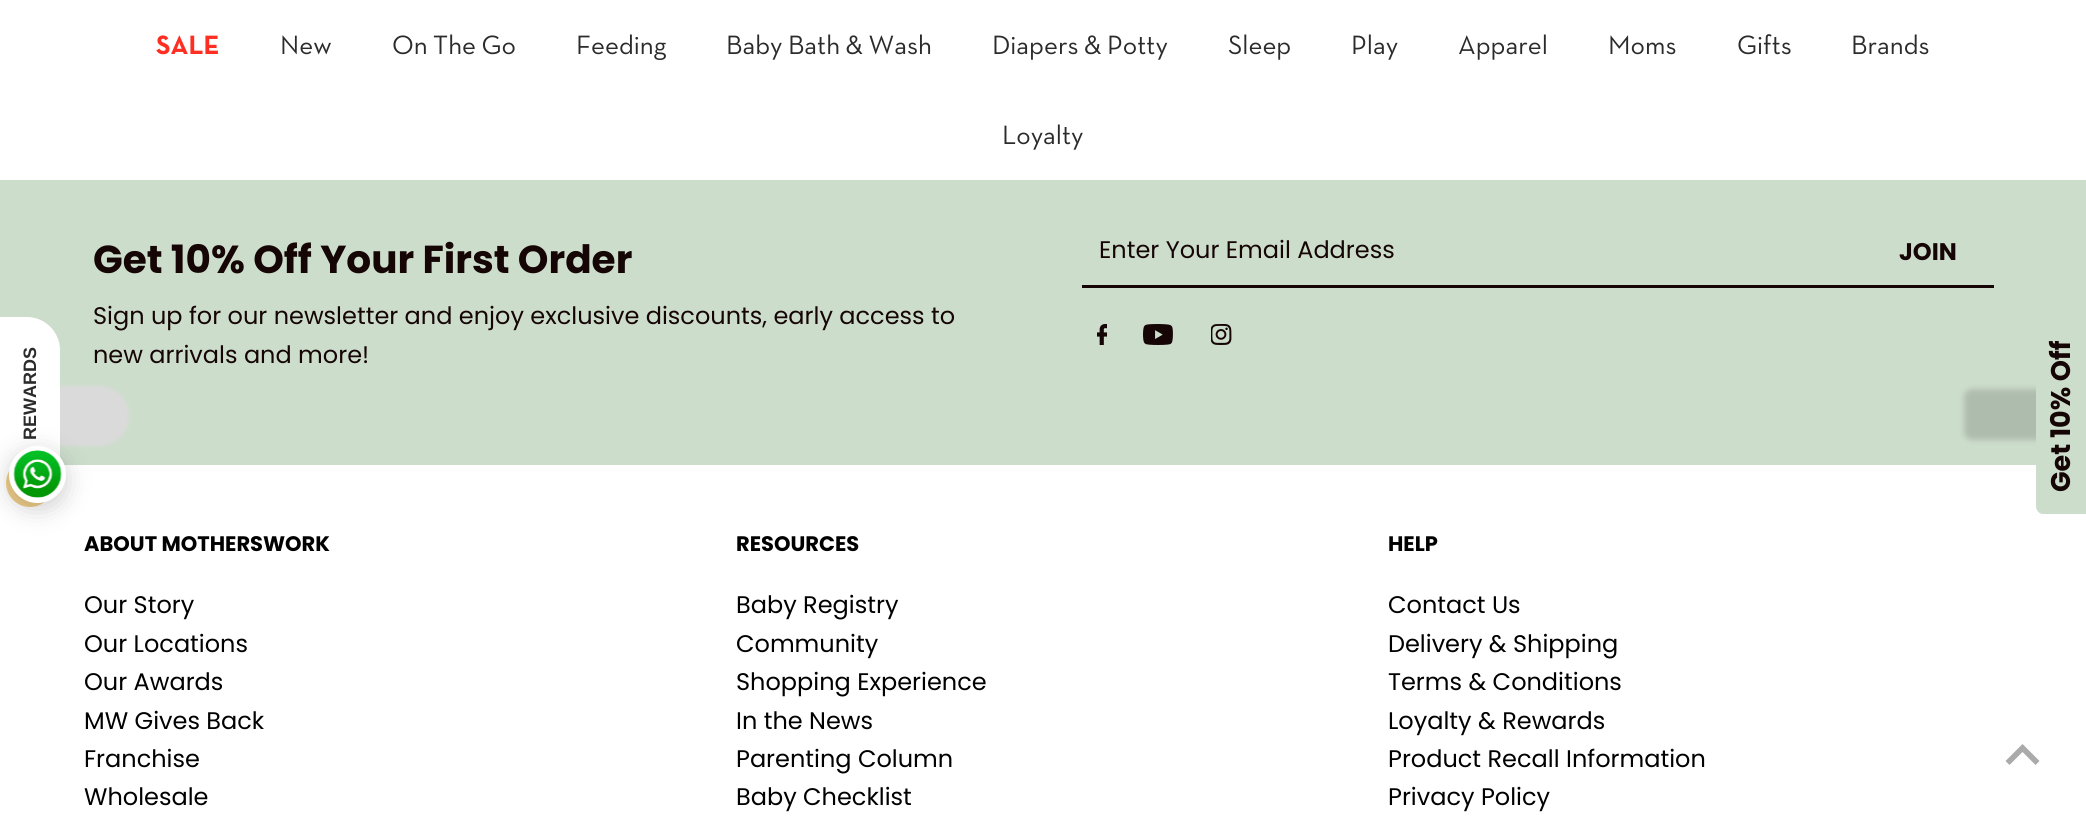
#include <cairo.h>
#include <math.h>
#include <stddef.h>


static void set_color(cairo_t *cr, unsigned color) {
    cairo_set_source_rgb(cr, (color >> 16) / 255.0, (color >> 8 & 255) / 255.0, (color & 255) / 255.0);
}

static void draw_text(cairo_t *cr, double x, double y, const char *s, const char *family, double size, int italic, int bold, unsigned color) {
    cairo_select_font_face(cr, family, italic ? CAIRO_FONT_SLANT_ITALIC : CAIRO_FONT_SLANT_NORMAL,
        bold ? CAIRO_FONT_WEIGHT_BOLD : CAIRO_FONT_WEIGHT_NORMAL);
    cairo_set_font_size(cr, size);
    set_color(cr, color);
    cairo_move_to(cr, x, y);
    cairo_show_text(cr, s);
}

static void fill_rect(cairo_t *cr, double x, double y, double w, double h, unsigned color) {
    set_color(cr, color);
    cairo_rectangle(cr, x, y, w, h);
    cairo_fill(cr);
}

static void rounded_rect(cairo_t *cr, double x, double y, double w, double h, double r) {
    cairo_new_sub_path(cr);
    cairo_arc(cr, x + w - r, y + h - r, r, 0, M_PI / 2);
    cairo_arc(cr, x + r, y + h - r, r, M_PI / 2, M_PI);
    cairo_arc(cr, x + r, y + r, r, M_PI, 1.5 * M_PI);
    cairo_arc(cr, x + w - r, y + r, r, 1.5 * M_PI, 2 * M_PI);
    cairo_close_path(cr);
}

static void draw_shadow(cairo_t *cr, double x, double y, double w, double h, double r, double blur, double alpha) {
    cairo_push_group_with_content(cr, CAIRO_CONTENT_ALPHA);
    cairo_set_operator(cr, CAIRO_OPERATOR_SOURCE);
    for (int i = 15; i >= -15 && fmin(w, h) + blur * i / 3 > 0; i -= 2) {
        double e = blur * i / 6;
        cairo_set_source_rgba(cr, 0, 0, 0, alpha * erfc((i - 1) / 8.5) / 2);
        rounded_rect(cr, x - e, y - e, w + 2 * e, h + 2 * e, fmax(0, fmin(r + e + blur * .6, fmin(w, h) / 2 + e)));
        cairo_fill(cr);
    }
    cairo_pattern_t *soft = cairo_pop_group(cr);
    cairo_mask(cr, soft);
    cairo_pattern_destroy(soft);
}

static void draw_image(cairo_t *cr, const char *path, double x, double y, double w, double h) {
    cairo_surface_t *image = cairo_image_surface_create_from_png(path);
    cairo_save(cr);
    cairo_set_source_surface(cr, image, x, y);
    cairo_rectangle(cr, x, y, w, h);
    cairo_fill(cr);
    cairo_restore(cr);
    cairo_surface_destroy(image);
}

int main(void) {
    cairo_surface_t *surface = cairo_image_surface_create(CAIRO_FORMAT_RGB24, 2086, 832);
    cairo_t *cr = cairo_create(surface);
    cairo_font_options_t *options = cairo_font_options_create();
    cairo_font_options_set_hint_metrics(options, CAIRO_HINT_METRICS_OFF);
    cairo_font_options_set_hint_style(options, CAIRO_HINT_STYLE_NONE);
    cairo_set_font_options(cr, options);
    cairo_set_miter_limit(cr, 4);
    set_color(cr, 0xFFFFFF);
    cairo_paint(cr);
    fill_rect(cr, 0, 180, 2086, 285, 0xCDDDCC);
    set_color(cr, 0xDADADA);
    draw_shadow(cr, -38, 386, 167, 60, 33, 1.5, 1);
    set_color(cr, 0xFFFFFF);
    cairo_new_path(cr);
    cairo_move_to(cr, 0, 516);
    cairo_line_to(cr, 0, 317);
    cairo_line_to(cr, 27, 317);
    cairo_curve_to(cr, 45, 317, 60, 332, 60, 350);
    cairo_line_to(cr, 60, 483);
    cairo_curve_to(cr, 60, 501, 45, 516, 27, 516);
    cairo_close_path(cr);
    cairo_fill(cr);
    cairo_save(cr);
    cairo_translate(cr, 36, 440);
    cairo_rotate(cr, -90 * M_PI / 180);
    draw_text(cr, 0, 0, "REWARDS", "Liberation Sans", 18, 0, 1, 0x2B2B2B);
    cairo_restore(cr);
    set_color(cr, 0xEFCD8B);
    cairo_new_path(cr);
    cairo_arc(cr, 30, 483, 24, 0, 2 * M_PI);
    cairo_fill(cr);
    draw_text(cr, 156, 54, "SALE", "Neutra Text", 27, 0, 1, 0xFF2E22);
    draw_text(cr, 280, 54, "New", "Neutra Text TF", 27, 0, 0, 0x2B2B2B);
    draw_text(cr, 392, 54, "On The Go", "Neutra Text TF", 27, 0, 0, 0x2B2B2B);
    draw_text(cr, 576, 54, "Feeding", "Neutra Text TF", 27, 0, 0, 0x2B2B2B);
    draw_text(cr, 726, 54, "Baby Bath & Wash", "Neutra Text TF", 27, 0, 0, 0x2B2B2B);
    draw_text(cr, 992, 54, "Diapers & Potty", "Neutra Text TF", 27, 0, 0, 0x2B2B2B);
    draw_text(cr, 1228, 54, "Sleep", "Neutra Text TF", 27, 0, 0, 0x2B2B2B);
    draw_text(cr, 1351, 54, "Play", "Neutra Text TF", 27, 0, 0, 0x2B2B2B);
    draw_text(cr, 1458, 54, "Apparel", "Neutra Text TF", 27, 0, 0, 0x2B2B2B);
    draw_text(cr, 1608, 54, "Moms", "Neutra Text TF", 27, 0, 0, 0x2B2B2B);
    draw_text(cr, 1737, 54, "Gifts", "Neutra Text TF", 27, 0, 0, 0x2B2B2B);
    draw_text(cr, 1851, 54, "Brands", "Neutra Text TF", 27, 0, 0, 0x2B2B2B);
    draw_text(cr, 1002, 144, "Loyalty", "Neutra Text TF", 27, 0, 0, 0x2B2B2B);
    draw_text(cr, 93, 273, "Get 10% Off Your First Order", "Poppins", 39, 0, 1, 0x150505);
    draw_text(cr, 93, 324, "Sign up for our newsletter and enjoy exclusive discounts, early access to", "Poppins", 24, 0, 0, 0x150505);
    draw_text(cr, 93, 363, "new arrivals and more!", "Poppins", 24, 0, 0, 0x150505);
    fill_rect(cr, 1082, 285, 912, 3, 0x150505);
    draw_text(cr, 1099, 258, "Enter Your Email Address", "Poppins", 24, 0, 0, 0x150505);
    draw_text(cr, 1899, 260, "JOIN", "Poppins", 24, 0, 1, 0x150505);
    draw_image(cr, "assets/img1.png", 1097, 324, 10, 21);
    draw_image(cr, "assets/img2.png", 1143, 324, 30, 21);
    draw_image(cr, "assets/img3.png", 1211, 324, 21, 21);
    draw_text(cr, 84, 551, "ABOUT MOTHERSWORK", "Poppins", 21, 0, 1, 0x000000);
    draw_text(cr, 84, 613, "Our Story", "Poppins", 24, 0, 0, 0x000000);
    draw_text(cr, 84, 652, "Our Locations", "Poppins", 24, 0, 0, 0x000000);
    draw_text(cr, 84, 690, "Our Awards", "Poppins", 24, 0, 0, 0x000000);
    draw_text(cr, 84, 729, "MW Gives Back", "Poppins", 24, 0, 0, 0x000000);
    draw_text(cr, 84, 767, "Franchise", "Poppins", 24, 0, 0, 0x000000);
    draw_text(cr, 84, 805, "Wholesale", "Poppins", 24, 0, 0, 0x000000);
    draw_text(cr, 736, 551, "RESOURCES", "Poppins", 21, 0, 1, 0x000000);
    draw_text(cr, 736, 613, "Baby Registry", "Poppins", 24, 0, 0, 0x000000);
    draw_text(cr, 736, 652, "Community", "Poppins", 24, 0, 0, 0x000000);
    draw_text(cr, 736, 690, "Shopping Experience", "Poppins", 24, 0, 0, 0x000000);
    draw_text(cr, 736, 729, "In the News", "Poppins", 24, 0, 0, 0x000000);
    draw_text(cr, 736, 767, "Parenting Column", "Poppins", 24, 0, 0, 0x000000);
    draw_text(cr, 736, 805, "Baby Checklist", "Poppins", 24, 0, 0, 0x000000);
    draw_text(cr, 1388, 551, "HELP", "Poppins", 21, 0, 1, 0x000000);
    draw_text(cr, 1388, 613, "Contact Us", "Poppins", 24, 0, 0, 0x000000);
    draw_text(cr, 1388, 652, "Delivery & Shipping", "Poppins", 24, 0, 0, 0x000000);
    draw_text(cr, 1388, 690, "Terms & Conditions", "Poppins", 24, 0, 0, 0x000000);
    draw_text(cr, 1388, 729, "Loyalty & Rewards", "Poppins", 24, 0, 0, 0x000000);
    draw_text(cr, 1388, 767, "Product Recall Information", "Poppins", 24, 0, 0, 0x000000);
    draw_text(cr, 1388, 805, "Privacy Policy", "Poppins", 24, 0, 0, 0x000000);
    set_color(cr, 0xAAAAAA);
    cairo_new_path(cr);
    cairo_move_to(cr, 2022.5, 744);
    cairo_line_to(cr, 2005.5, 761);
    cairo_line_to(cr, 2009.5, 765);
    cairo_line_to(cr, 2022.5, 752);
    cairo_line_to(cr, 2035.5, 765);
    cairo_line_to(cr, 2039.5, 761);
    cairo_close_path(cr);
    cairo_fill(cr);
    set_color(cr, 0x000000);
    draw_shadow(cr, 1964, 389, 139, 51, 8, 3, 0.15);
    set_color(cr, 0xCDDDCC);
    cairo_new_path(cr);
    cairo_move_to(cr, 2036, 506);
    cairo_line_to(cr, 2036, 326);
    cairo_curve_to(cr, 2036, 322, 2039, 319, 2043, 319);
    cairo_line_to(cr, 2086, 319);
    cairo_line_to(cr, 2086, 514);
    cairo_line_to(cr, 2043, 514);
    cairo_curve_to(cr, 2039, 514, 2036, 510, 2036, 506);
    cairo_close_path(cr);
    cairo_fill(cr);
    cairo_save(cr);
    cairo_translate(cr, 2070, 492);
    cairo_rotate(cr, -90 * M_PI / 180);
    draw_text(cr, 0, 0, "Get 10% Off", "Poppins", 27, 0, 1, 0x150505);
    cairo_restore(cr);
    set_color(cr, 0x000000);
    draw_shadow(cr, 9, 452, 57, 57, 28.5, 12, 0.18);
    set_color(cr, 0xFFFFFF);
    cairo_arc(cr, 37.5, 474.5, 28.5, 0, 2 * M_PI);
    cairo_fill(cr);
    draw_image(cr, "assets/img4.png", 13, 450, 49, 48);
    cairo_surface_write_to_png(surface, "output.png");
    cairo_font_options_destroy(options);
    cairo_destroy(cr);
    cairo_surface_destroy(surface);
    return 0;
}
